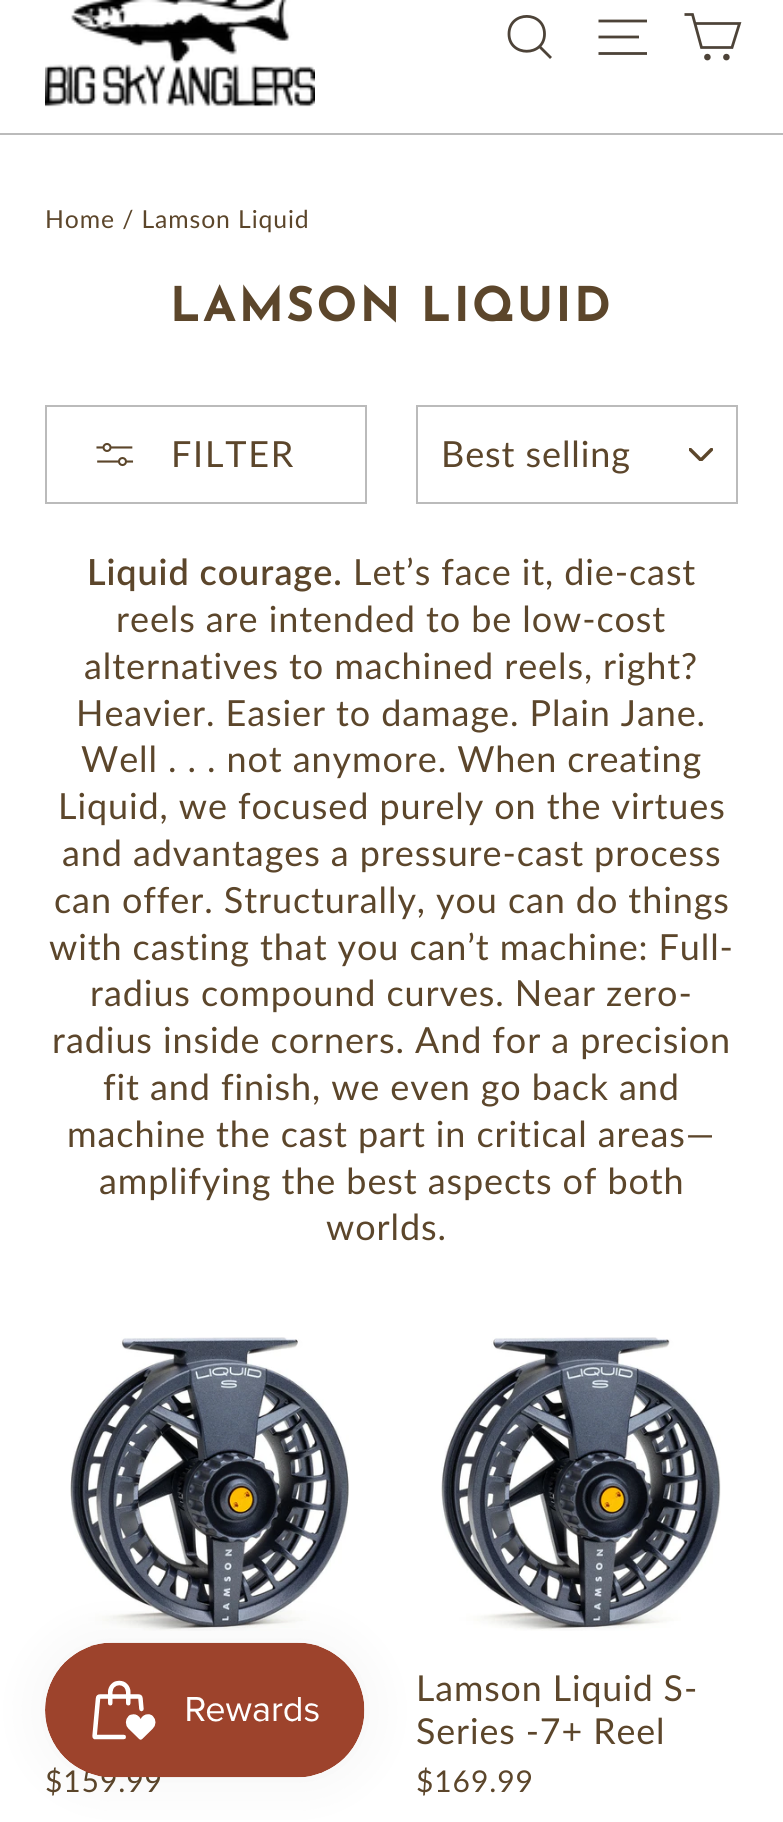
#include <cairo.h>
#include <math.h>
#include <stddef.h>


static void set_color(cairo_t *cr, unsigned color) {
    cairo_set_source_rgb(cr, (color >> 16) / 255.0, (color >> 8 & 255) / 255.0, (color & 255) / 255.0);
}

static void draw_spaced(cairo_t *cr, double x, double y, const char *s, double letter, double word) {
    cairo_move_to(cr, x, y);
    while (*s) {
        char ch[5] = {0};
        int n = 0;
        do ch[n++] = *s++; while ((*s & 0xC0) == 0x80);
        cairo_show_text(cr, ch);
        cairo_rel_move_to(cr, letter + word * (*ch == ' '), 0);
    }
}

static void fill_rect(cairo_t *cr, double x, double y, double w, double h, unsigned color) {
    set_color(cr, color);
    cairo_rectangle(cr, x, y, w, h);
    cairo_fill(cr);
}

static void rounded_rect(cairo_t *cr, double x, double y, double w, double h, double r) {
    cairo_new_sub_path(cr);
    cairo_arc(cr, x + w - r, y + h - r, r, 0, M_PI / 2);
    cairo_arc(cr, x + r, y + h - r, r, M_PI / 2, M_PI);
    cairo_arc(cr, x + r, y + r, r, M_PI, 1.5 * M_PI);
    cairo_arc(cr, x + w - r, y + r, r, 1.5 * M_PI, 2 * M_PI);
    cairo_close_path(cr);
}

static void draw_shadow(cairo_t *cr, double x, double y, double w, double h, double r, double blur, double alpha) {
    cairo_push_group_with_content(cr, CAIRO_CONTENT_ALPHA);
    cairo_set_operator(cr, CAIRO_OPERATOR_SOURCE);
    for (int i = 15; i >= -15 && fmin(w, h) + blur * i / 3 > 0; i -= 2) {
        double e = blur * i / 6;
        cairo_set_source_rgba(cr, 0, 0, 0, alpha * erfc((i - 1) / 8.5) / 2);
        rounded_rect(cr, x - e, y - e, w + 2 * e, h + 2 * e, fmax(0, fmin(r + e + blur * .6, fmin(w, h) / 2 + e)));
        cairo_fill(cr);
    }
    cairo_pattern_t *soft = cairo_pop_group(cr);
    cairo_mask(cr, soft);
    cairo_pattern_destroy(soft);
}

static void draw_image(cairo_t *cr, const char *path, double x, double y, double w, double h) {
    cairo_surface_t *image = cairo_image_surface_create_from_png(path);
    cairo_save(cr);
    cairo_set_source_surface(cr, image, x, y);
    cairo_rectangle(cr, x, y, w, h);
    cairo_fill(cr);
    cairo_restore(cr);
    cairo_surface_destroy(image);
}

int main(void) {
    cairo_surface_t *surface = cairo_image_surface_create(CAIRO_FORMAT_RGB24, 783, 1822);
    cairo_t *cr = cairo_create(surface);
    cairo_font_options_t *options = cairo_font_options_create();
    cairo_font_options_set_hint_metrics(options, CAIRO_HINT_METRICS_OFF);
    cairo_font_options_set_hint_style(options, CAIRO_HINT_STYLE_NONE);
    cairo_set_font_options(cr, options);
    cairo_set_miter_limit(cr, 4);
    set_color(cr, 0xFFFFFF);
    cairo_paint(cr);
    fill_rect(cr, 0, 133, 783, 2, 0xBBBBBB);
    draw_image(cr, "assets/img1.png", 45, 0, 270, 107);
    cairo_new_path(cr);
    cairo_move_to(cr, 544.5, 34);
    cairo_curve_to(cr, 544.5, 57, 509, 57, 509, 34);
    cairo_curve_to(cr, 509, 10.5, 544.5, 10.5, 544.5, 34);
    cairo_close_path(cr);
    cairo_move_to(cr, 551, 58);
    cairo_line_to(cr, 539.5, 46.5);
    set_color(cr, 0x4D4338);
    cairo_set_line_width(cr, 2.8);
    cairo_stroke(cr);
    cairo_new_path(cr);
    cairo_move_to(cr, 598.5, 21);
    cairo_line_to(cr, 647, 21);
    cairo_move_to(cr, 598.5, 37);
    cairo_line_to(cr, 639, 37);
    cairo_move_to(cr, 598.5, 53.5);
    cairo_line_to(cr, 647, 53.5);
    cairo_stroke(cr);
    cairo_new_path(cr);
    cairo_move_to(cr, 695, 23.5);
    cairo_line_to(cr, 739.5, 23.5);
    cairo_line_to(cr, 732, 47.5);
    cairo_line_to(cr, 701.5, 47.5);
    cairo_line_to(cr, 692.5, 14.5);
    cairo_line_to(cr, 684.5, 14.5);
    cairo_stroke(cr);
    cairo_arc(cr, 707.4, 57.1, 1.9, 0, 2 * M_PI);
    cairo_fill_preserve(cr);
    cairo_stroke(cr);
    cairo_arc(cr, 726.4, 57.1, 1.9, 0, 2 * M_PI);
    cairo_fill_preserve(cr);
    cairo_stroke(cr);
    cairo_select_font_face(cr, "Lato", CAIRO_FONT_SLANT_NORMAL, CAIRO_FONT_WEIGHT_NORMAL);
    cairo_set_font_size(cr, 24.75);
    set_color(cr, 0x5C462B);
    draw_spaced(cr, 45, 228, "Home / Lamson Liquid", 0.9, 0);
    cairo_select_font_face(cr, "Josefin Sans", CAIRO_FONT_SLANT_NORMAL, CAIRO_FONT_WEIGHT_BOLD);
    cairo_set_font_size(cr, 47.75);
    draw_spaced(cr, 170, 321, "LAMSON LIQUID", 2.4, 0);
    cairo_rectangle(cr, 46, 406, 320, 97);
    set_color(cr, 0xBBBBBB);
    cairo_set_line_width(cr, 2);
    cairo_stroke(cr);
    draw_image(cr, "assets/img2.png", 96, 442, 38, 25);
    cairo_select_font_face(cr, "Lato", CAIRO_FONT_SLANT_NORMAL, CAIRO_FONT_WEIGHT_NORMAL);
    cairo_set_font_size(cr, 36);
    set_color(cr, 0x5C462B);
    draw_spaced(cr, 171, 467, "FILTER", 1.75, 0);
    draw_image(cr, "assets/img3.png", 689, 448, 24, 13);
    cairo_rectangle(cr, 417, 406, 320, 97);
    set_color(cr, 0xBBBBBB);
    cairo_stroke(cr);
    set_color(cr, 0x5C462B);
    draw_spaced(cr, 441, 467, "Best selling", 0.9, 0);
    cairo_select_font_face(cr, "Lato SemiBold", CAIRO_FONT_SLANT_NORMAL, CAIRO_FONT_WEIGHT_NORMAL);
    draw_spaced(cr, 87, 585, "Liquid courage.", 0.9, 0);
    cairo_select_font_face(cr, "Lato", CAIRO_FONT_SLANT_NORMAL, CAIRO_FONT_WEIGHT_NORMAL);
    draw_spaced(cr, 353, 585, "Let’s face it, die-cast", 0.9, 0);
    draw_spaced(cr, 116, 632, "reels are intended to be low-cost", 0.9, 0);
    draw_spaced(cr, 84, 679, "alternatives to machined reels, right?", 0.9, 0);
    draw_spaced(cr, 76, 726, "Heavier. Easier to damage. Plain Jane.", 0.9, 0);
    draw_spaced(cr, 81, 772, "Well . . . not anymore. When creating", 0.9, 0);
    draw_spaced(cr, 58, 819, "Liquid, we focused purely on the virtues", 0.9, 0);
    draw_spaced(cr, 62, 866, "and advantages a pressure-cast process", 0.9, 0);
    draw_spaced(cr, 54, 913, "can offer. Structurally, you can do things", 0.9, 0);
    draw_spaced(cr, 49, 960, "with casting that you can’t machine: Full-", 0.9, 0);
    draw_spaced(cr, 90, 1006, "radius compound curves. Near zero-", 0.9, 0);
    draw_spaced(cr, 52, 1053, "radius inside corners. And for a precision", 0.9, 0);
    draw_spaced(cr, 103, 1100, "fit and finish, we even go back and", 0.9, 0);
    draw_spaced(cr, 67, 1147, "machine the cast part in critical areas—", 0.9, 0);
    draw_spaced(cr, 99, 1194, "amplifying the best aspects of both", 0.9, 0);
    draw_spaced(cr, 326, 1240, "worlds.", 0.9, 0);
    draw_image(cr, "assets/img4.png", 70, 1337, 279, 294);
    cairo_set_font_size(cr, 30);
    draw_spaced(cr, 45, 1792, "$159.99", 0.9, 0);
    draw_image(cr, "assets/img5.png", 441, 1337, 280, 294);
    cairo_set_font_size(cr, 35.75);
    draw_spaced(cr, 416, 1701, "Lamson Liquid S-", 0.9, 0);
    draw_spaced(cr, 416, 1744, "Series -7+ Reel", 0.9, 0);
    cairo_set_font_size(cr, 30);
    draw_spaced(cr, 416, 1792, "$169.99", 0.9, 0);
    set_color(cr, 0x000000);
    draw_shadow(cr, 45, 1643, 320, 135, 67.5, 28, 0.05);
    draw_image(cr, "assets/img6.png", 45, 1642, 320, 136);
    cairo_surface_write_to_png(surface, "output.png");
    cairo_font_options_destroy(options);
    cairo_destroy(cr);
    cairo_surface_destroy(surface);
    return 0;
}
